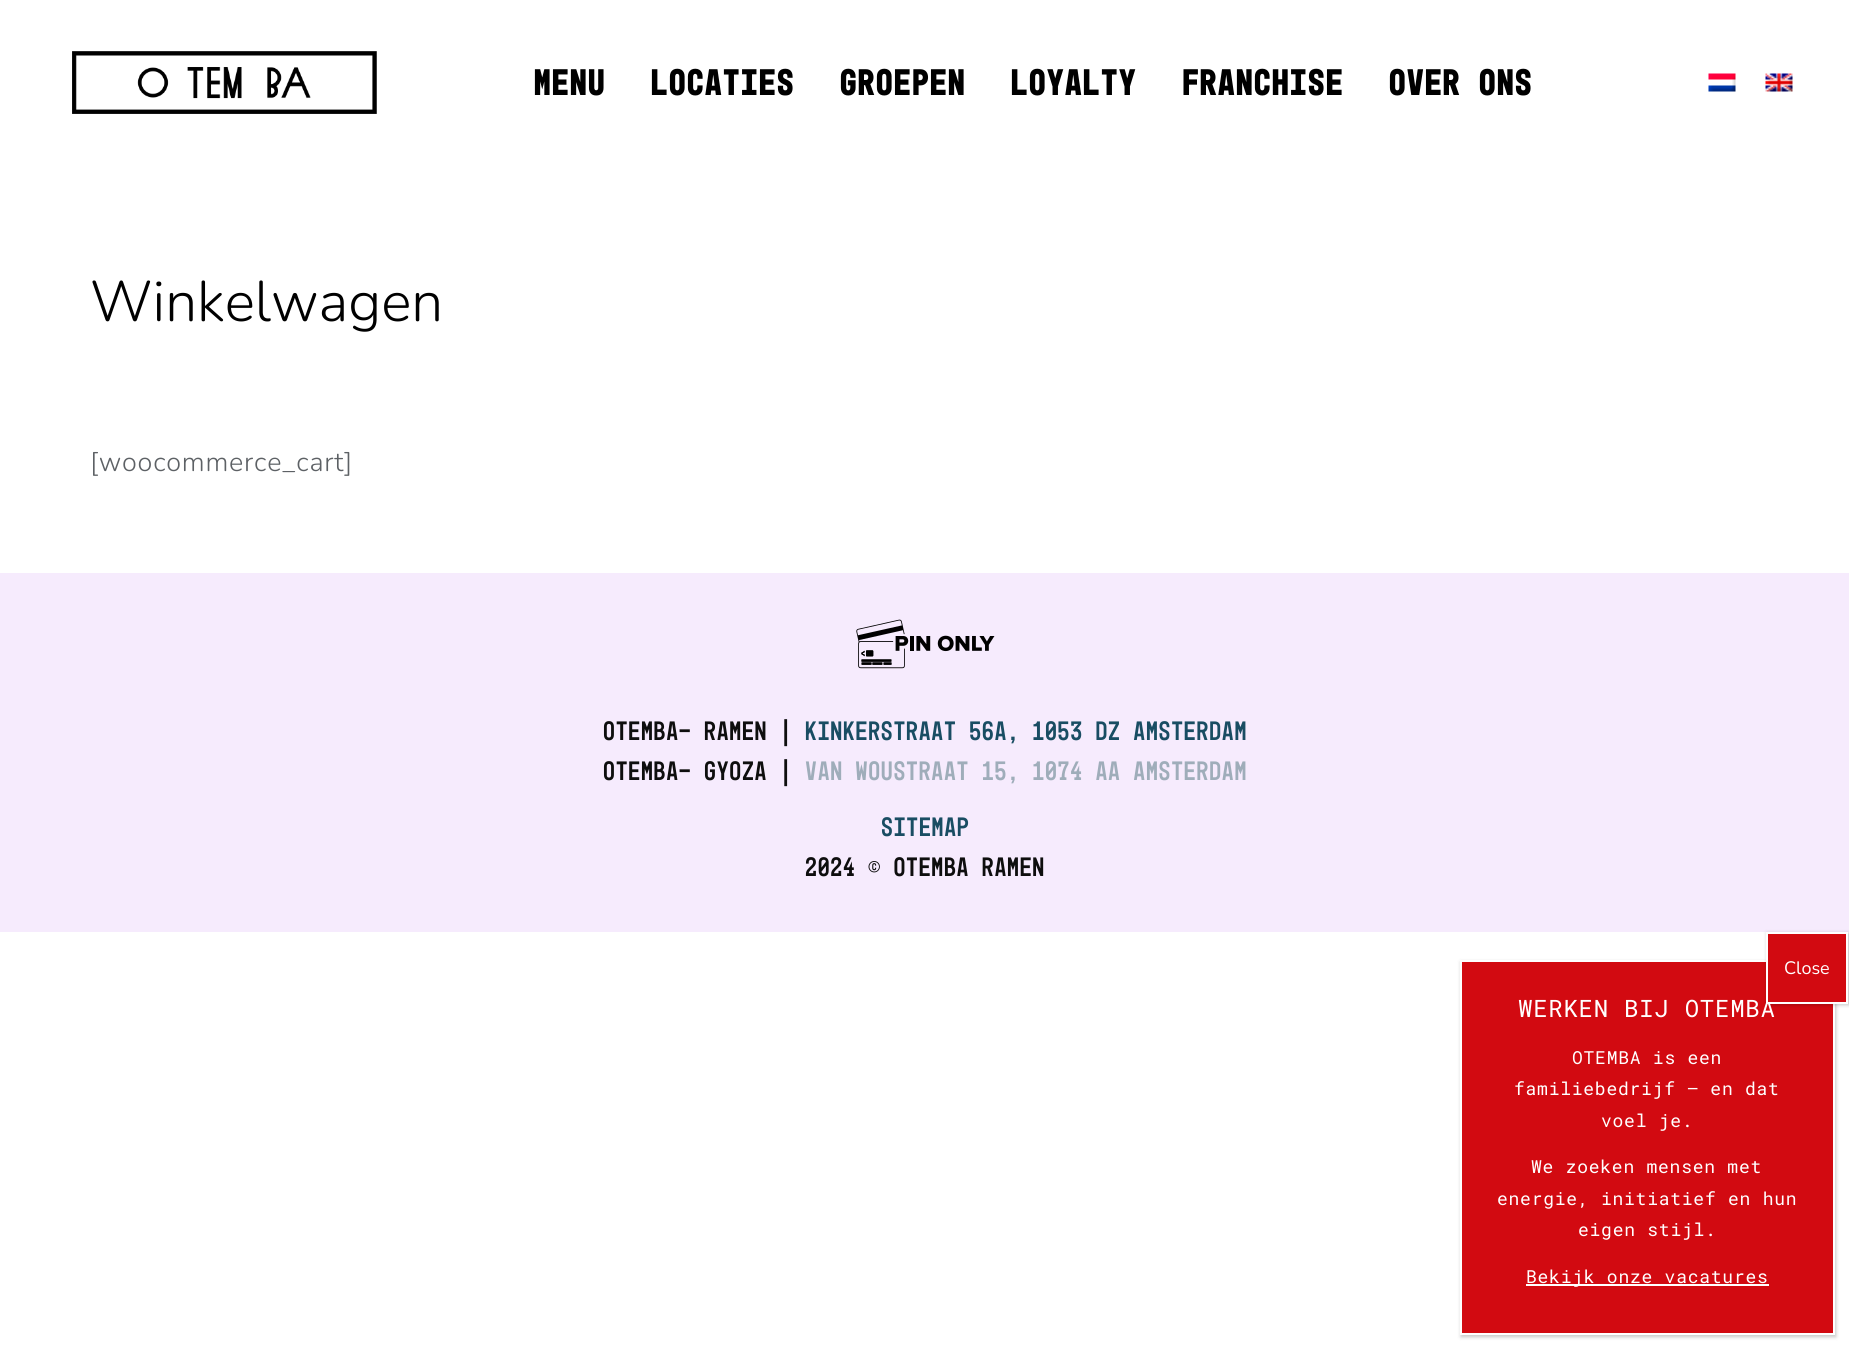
#include <cairo.h>
#include <math.h>
#include <stddef.h>


static void set_color(cairo_t *cr, unsigned color) {
    cairo_set_source_rgb(cr, (color >> 16) / 255.0, (color >> 8 & 255) / 255.0, (color & 255) / 255.0);
}

static void draw_text(cairo_t *cr, double x, double y, const char *s, const char *family, double size, int italic, int bold, unsigned color) {
    cairo_select_font_face(cr, family, italic ? CAIRO_FONT_SLANT_ITALIC : CAIRO_FONT_SLANT_NORMAL,
        bold ? CAIRO_FONT_WEIGHT_BOLD : CAIRO_FONT_WEIGHT_NORMAL);
    cairo_set_font_size(cr, size);
    set_color(cr, color);
    cairo_move_to(cr, x, y);
    cairo_show_text(cr, s);
}

static void draw_spaced(cairo_t *cr, double x, double y, const char *s, double letter, double word) {
    cairo_move_to(cr, x, y);
    while (*s) {
        char ch[5] = {0};
        int n = 0;
        do ch[n++] = *s++; while ((*s & 0xC0) == 0x80);
        cairo_show_text(cr, ch);
        cairo_rel_move_to(cr, letter + word * (*ch == ' '), 0);
    }
}

static void fill_rect(cairo_t *cr, double x, double y, double w, double h, unsigned color) {
    set_color(cr, color);
    cairo_rectangle(cr, x, y, w, h);
    cairo_fill(cr);
}

static void rounded_rect(cairo_t *cr, double x, double y, double w, double h, double r) {
    cairo_new_sub_path(cr);
    cairo_arc(cr, x + w - r, y + h - r, r, 0, M_PI / 2);
    cairo_arc(cr, x + r, y + h - r, r, M_PI / 2, M_PI);
    cairo_arc(cr, x + r, y + r, r, M_PI, 1.5 * M_PI);
    cairo_arc(cr, x + w - r, y + r, r, 1.5 * M_PI, 2 * M_PI);
    cairo_close_path(cr);
}

static void draw_shadow(cairo_t *cr, double x, double y, double w, double h, double r, double blur, double alpha) {
    cairo_push_group_with_content(cr, CAIRO_CONTENT_ALPHA);
    cairo_set_operator(cr, CAIRO_OPERATOR_SOURCE);
    for (int i = 15; i >= -15 && fmin(w, h) + blur * i / 3 > 0; i -= 2) {
        double e = blur * i / 6;
        cairo_set_source_rgba(cr, 0, 0, 0, alpha * erfc((i - 1) / 8.5) / 2);
        rounded_rect(cr, x - e, y - e, w + 2 * e, h + 2 * e, fmax(0, fmin(r + e + blur * .6, fmin(w, h) / 2 + e)));
        cairo_fill(cr);
    }
    cairo_pattern_t *soft = cairo_pop_group(cr);
    cairo_mask(cr, soft);
    cairo_pattern_destroy(soft);
}

static void draw_image(cairo_t *cr, const char *path, double x, double y, double w, double h) {
    cairo_surface_t *image = cairo_image_surface_create_from_png(path);
    cairo_save(cr);
    cairo_set_source_surface(cr, image, x, y);
    cairo_rectangle(cr, x, y, w, h);
    cairo_fill(cr);
    cairo_restore(cr);
    cairo_surface_destroy(image);
}

int main(void) {
    cairo_surface_t *surface = cairo_image_surface_create(CAIRO_FORMAT_RGB24, 1849, 1349);
    cairo_t *cr = cairo_create(surface);
    cairo_font_options_t *options = cairo_font_options_create();
    cairo_font_options_set_hint_metrics(options, CAIRO_HINT_METRICS_OFF);
    cairo_font_options_set_hint_style(options, CAIRO_HINT_STYLE_NONE);
    cairo_set_font_options(cr, options);
    cairo_set_miter_limit(cr, 4);
    set_color(cr, 0xFFFFFF);
    cairo_paint(cr);
    draw_image(cr, "assets/img1.png", 72, 51, 305, 63);
    cairo_select_font_face(cr, "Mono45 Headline", CAIRO_FONT_SLANT_NORMAL, CAIRO_FONT_WEIGHT_BOLD);
    cairo_set_font_size(cr, 37.5);
    set_color(cr, 0x000000);
    draw_spaced(cr, 534, 95, "MENU", 1.5, 0);
    draw_spaced(cr, 651, 95, "LOCATIES", 1.5, 0);
    draw_spaced(cr, 840, 95, "GROEPEN", 1.5, 0);
    draw_spaced(cr, 1011, 95, "LOYALTY", 1.5, 0);
    draw_spaced(cr, 1182, 95, "FRANCHISE", 1.5, 0);
    draw_spaced(cr, 1389, 95, "OVER ONS", 1.5, 0);
    draw_image(cr, "assets/img2.png", 1708, 73, 28, 19);
    draw_image(cr, "assets/img3.png", 1765, 73, 28, 19);
    draw_text(cr, 90, 321, "Winkelwagen", "Nunito Light", 57, 0, 0, 0x000000);
    cairo_set_font_size(cr, 27);
    set_color(cr, 0x5D6165);
    draw_spaced(cr, 90, 471, "[woocommerce_cart]", 0.75, 0);
    fill_rect(cr, 0, 573, 1849, 359, 0xF6EBFD);
    draw_image(cr, "assets/img4.png", 856, 619, 139, 50);
    cairo_select_font_face(cr, "Mono45 Headline", CAIRO_FONT_SLANT_NORMAL, CAIRO_FONT_WEIGHT_NORMAL);
    set_color(cr, 0x0E0E0E);
    draw_spaced(cr, 603, 740, "OTEMBA- RAMEN |", 0.75, 0);
    set_color(cr, 0x194D63);
    draw_spaced(cr, 805, 740, "Kinkerstraat 56A, 1053 DZ Amsterdam", 0.75, 0);
    set_color(cr, 0x0E0E0E);
    draw_spaced(cr, 603, 780, "OTEMBA- GYOZA |", 0.75, 0);
    set_color(cr, 0x9FADBA);
    draw_spaced(cr, 805, 780, "Van Woustraat 15, 1074 AA Amsterdam", 0.75, 0);
    set_color(cr, 0x194D63);
    draw_spaced(cr, 881, 836, "SITEMAP", 0.75, 0);
    set_color(cr, 0x0E0E0E);
    draw_spaced(cr, 805, 876, "2024 © Otemba Ramen", 0.75, 0);
    set_color(cr, 0x020202);
    draw_shadow(cr, 1461, 962, 375, 375, 0, 2, 0.23);
    set_color(cr, 0xD20A11);
    cairo_rectangle(cr, 1461, 961, 373, 373);
    cairo_fill_preserve(cr);
    set_color(cr, 0xFFFFFF);
    cairo_stroke(cr);
    set_color(cr, 0x020202);
    draw_shadow(cr, 1767, 933, 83, 72, 0, 2, 0.23);
    cairo_select_font_face(cr, "Roboto Mono", CAIRO_FONT_SLANT_NORMAL, CAIRO_FONT_WEIGHT_NORMAL);
    cairo_set_font_size(cr, 24);
    set_color(cr, 0xFFFFFF);
    draw_spaced(cr, 1518, 1017, "WERKEN BIJ OTEMBA", 0.75, 0);
    set_color(cr, 0xD20A11);
    cairo_rectangle(cr, 1767, 933, 80, 70);
    cairo_fill_preserve(cr);
    set_color(cr, 0xFFFFFF);
    cairo_stroke(cr);
    draw_text(cr, 1784, 974, "Close", "Nunito", 18, 0, 0, 0xFFFFFF);
    cairo_select_font_face(cr, "Roboto Mono", CAIRO_FONT_SLANT_NORMAL, CAIRO_FONT_WEIGHT_NORMAL);
    draw_spaced(cr, 1572, 1064, "OTEMBA is een", 0.75, 0);
    draw_spaced(cr, 1514, 1095, "familiebedrijf — en dat", 0.75, 0);
    draw_spaced(cr, 1601, 1127, "voel je.", 0.75, 0);
    draw_spaced(cr, 1531, 1173, "We zoeken mensen met", 0.75, 0);
    draw_spaced(cr, 1497, 1205, "energie, initiatief en hun", 0.75, 0);
    draw_spaced(cr, 1578, 1236, "eigen stijl.", 0.75, 0);
    fill_rect(cr, 1526, 1284, 243, 2, 0xFFFFFF);
    draw_spaced(cr, 1526, 1283, "Bekijk onze vacatures", 0.75, 0);
    cairo_surface_write_to_png(surface, "output.png");
    cairo_font_options_destroy(options);
    cairo_destroy(cr);
    cairo_surface_destroy(surface);
    return 0;
}
